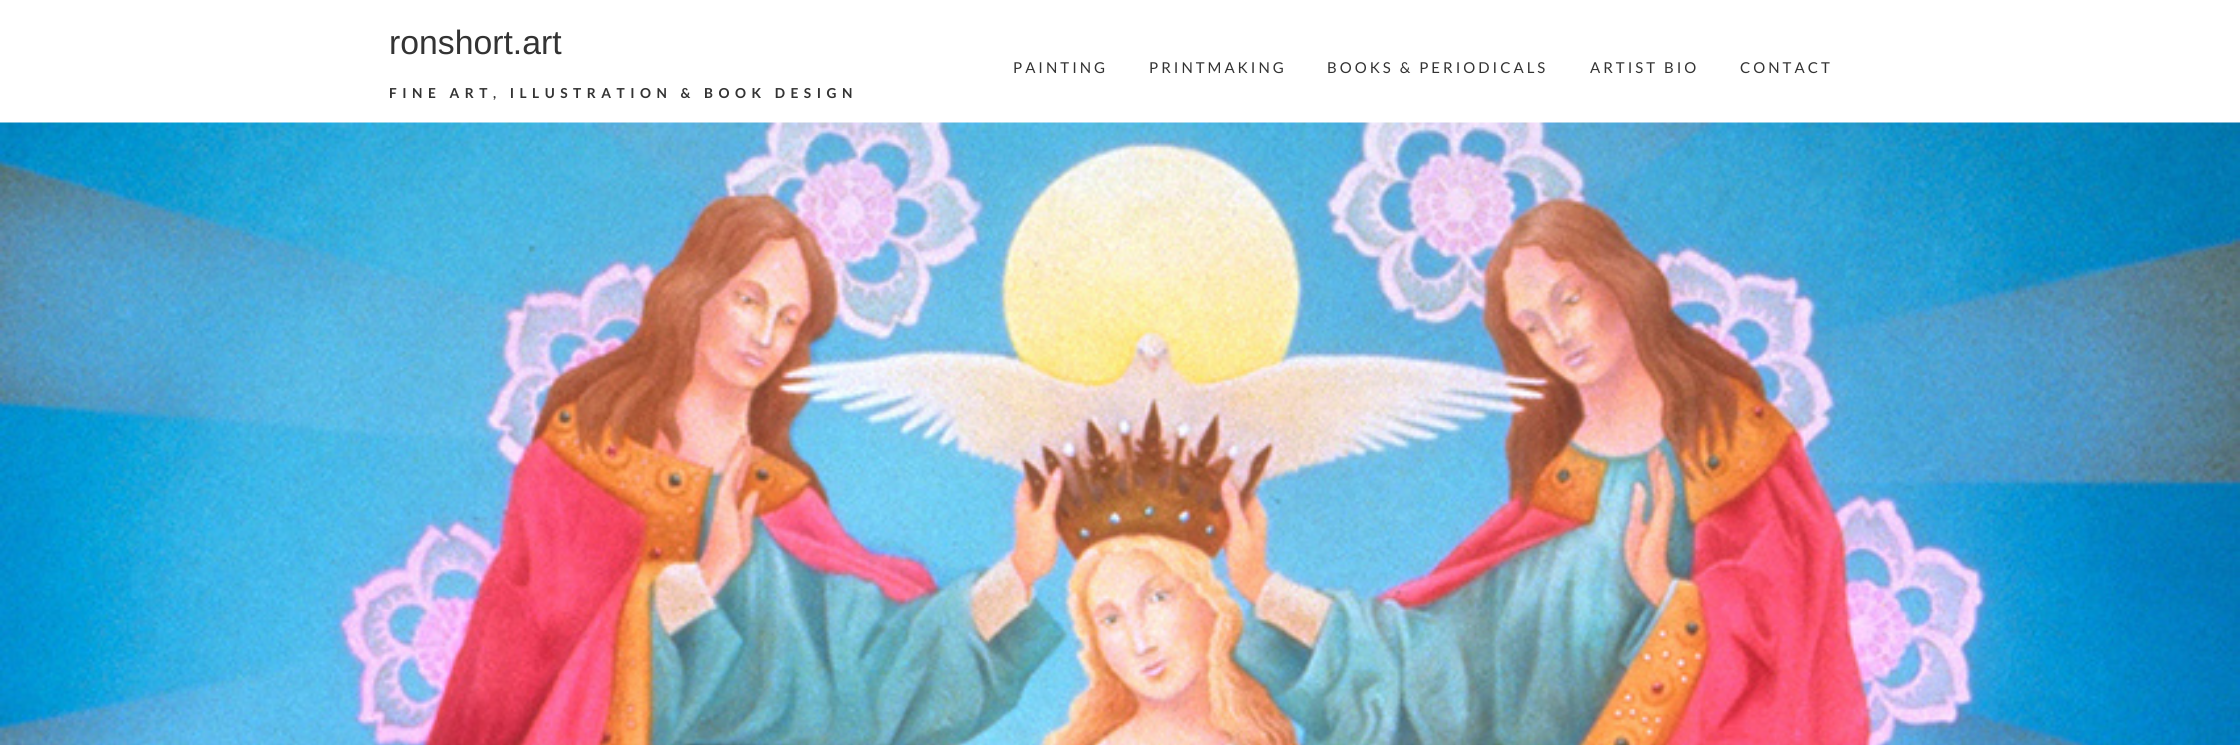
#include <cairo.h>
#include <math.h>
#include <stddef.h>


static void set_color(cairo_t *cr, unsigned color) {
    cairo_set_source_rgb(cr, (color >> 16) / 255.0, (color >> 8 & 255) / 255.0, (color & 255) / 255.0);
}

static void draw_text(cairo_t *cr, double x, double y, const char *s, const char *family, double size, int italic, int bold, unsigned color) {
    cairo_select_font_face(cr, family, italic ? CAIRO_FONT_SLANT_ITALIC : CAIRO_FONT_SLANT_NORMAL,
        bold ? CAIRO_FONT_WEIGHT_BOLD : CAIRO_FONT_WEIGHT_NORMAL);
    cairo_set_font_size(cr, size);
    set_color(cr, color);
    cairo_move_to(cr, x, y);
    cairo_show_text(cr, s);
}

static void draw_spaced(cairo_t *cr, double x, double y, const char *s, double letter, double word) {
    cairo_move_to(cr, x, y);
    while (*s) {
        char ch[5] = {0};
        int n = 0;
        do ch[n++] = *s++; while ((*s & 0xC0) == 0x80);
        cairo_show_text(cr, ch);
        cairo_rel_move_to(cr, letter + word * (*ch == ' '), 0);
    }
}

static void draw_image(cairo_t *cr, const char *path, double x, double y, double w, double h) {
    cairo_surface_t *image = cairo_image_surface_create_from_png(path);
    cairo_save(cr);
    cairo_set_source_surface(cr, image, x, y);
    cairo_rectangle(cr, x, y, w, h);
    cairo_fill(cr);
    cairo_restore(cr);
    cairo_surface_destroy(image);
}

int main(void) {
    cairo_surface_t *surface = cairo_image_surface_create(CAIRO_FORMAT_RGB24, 2240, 745);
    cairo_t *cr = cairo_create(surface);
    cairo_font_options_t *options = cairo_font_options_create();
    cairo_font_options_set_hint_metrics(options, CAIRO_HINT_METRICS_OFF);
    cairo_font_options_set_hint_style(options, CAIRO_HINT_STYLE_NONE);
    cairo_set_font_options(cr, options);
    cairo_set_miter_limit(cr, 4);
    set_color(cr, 0xFFFFFF);
    cairo_paint(cr);
    draw_text(cr, 389, 54, "ronshort.art", "Liberation Sans", 33.75, 0, 0, 0x333333);
    cairo_select_font_face(cr, "Lato", CAIRO_FONT_SLANT_NORMAL, CAIRO_FONT_WEIGHT_BOLD);
    cairo_set_font_size(cr, 13.75);
    draw_spaced(cr, 389, 98, "FINE ART, ILLUSTRATION & BOOK DESIGN", 5.5, 0);
    cairo_select_font_face(cr, "Lato", CAIRO_FONT_SLANT_NORMAL, CAIRO_FONT_WEIGHT_NORMAL);
    cairo_set_font_size(cr, 15);
    draw_spaced(cr, 1013, 73, "PAINTING", 3, 0);
    draw_spaced(cr, 1149, 73, "PRINTMAKING", 3, 0);
    draw_spaced(cr, 1327, 73, "BOOKS & PERIODICALS", 3, 0);
    draw_spaced(cr, 1590, 73, "ARTIST BIO", 3, 0);
    draw_spaced(cr, 1740, 73, "CONTACT", 3, 0);
    draw_image(cr, "assets/img1.png", 0, 122, 2240, 623);
    cairo_surface_write_to_png(surface, "output.png");
    cairo_font_options_destroy(options);
    cairo_destroy(cr);
    cairo_surface_destroy(surface);
    return 0;
}
